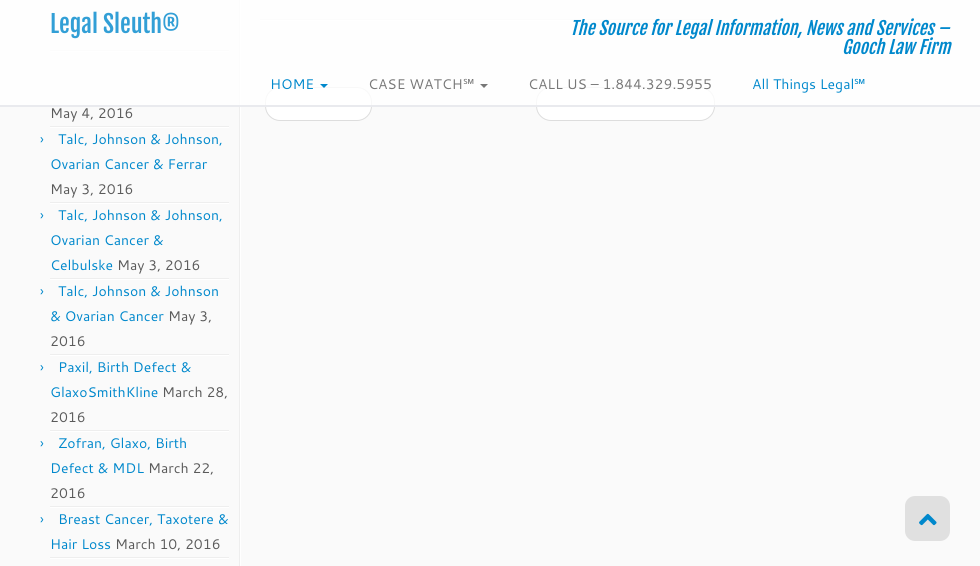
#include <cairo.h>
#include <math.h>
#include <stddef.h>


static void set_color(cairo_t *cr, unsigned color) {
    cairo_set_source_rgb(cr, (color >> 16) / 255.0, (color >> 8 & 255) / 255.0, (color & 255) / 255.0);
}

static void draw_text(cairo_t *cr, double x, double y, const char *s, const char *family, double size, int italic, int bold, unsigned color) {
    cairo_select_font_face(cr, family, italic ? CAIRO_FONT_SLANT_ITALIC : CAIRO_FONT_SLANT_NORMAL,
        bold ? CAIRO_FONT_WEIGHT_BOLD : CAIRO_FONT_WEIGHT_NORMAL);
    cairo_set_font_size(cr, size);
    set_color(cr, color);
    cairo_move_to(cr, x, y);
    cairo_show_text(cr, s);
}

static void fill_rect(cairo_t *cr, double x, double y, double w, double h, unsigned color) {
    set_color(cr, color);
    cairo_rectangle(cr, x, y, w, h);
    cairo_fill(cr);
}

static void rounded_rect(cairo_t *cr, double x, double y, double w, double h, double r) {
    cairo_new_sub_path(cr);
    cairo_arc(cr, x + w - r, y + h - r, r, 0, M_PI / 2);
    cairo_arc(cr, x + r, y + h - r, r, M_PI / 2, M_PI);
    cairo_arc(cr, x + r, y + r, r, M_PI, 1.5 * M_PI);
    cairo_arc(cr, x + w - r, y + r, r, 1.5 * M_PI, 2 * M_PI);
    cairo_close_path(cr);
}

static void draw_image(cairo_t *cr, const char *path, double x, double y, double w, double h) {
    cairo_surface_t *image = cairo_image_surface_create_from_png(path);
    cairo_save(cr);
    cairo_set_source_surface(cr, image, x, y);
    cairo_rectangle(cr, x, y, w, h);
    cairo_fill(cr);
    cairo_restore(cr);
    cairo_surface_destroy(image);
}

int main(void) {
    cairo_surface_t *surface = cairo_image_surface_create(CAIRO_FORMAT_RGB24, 980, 566);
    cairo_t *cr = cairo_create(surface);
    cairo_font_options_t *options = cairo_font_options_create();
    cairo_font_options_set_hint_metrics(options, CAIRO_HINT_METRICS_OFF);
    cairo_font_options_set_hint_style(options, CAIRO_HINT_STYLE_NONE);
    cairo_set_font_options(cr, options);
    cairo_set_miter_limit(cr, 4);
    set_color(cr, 0xFAFAFA);
    cairo_paint(cr);
    fill_rect(cr, 260, 19, 460, 1, 0xEEEEEE);
    fill_rect(cr, 260, 20, 460, 1, 0xFFFFFF);
    rounded_rect(cr, 265.5, 87.5, 106, 33, 14.5);
    cairo_fill_preserve(cr);
    set_color(cr, 0xDDDDDD);
    cairo_set_line_width(cr, 1);
    cairo_stroke(cr);
    set_color(cr, 0xFFFFFF);
    rounded_rect(cr, 536.5, 87.5, 178, 33, 14.5);
    cairo_fill_preserve(cr);
    set_color(cr, 0xDDDDDD);
    cairo_stroke(cr);
    fill_rect(cr, 239, 0, 1, 566, 0xEEEEEE);
    fill_rect(cr, 50, 50, 179, 1, 0xEEEEEE);
    fill_rect(cr, 50, 51, 179, 1, 0xFFFFFF);
    fill_rect(cr, 240, 0, 1, 566, 0xFFFFFF);
    cairo_set_source_rgba(cr, 1, 1, 1, 0.8);
    cairo_rectangle(cr, 0, 0, 980, 105);
    cairo_fill(cr);
    fill_rect(cr, 0, 105, 980, 2, 0xE9EAEE);
    draw_text(cr, 50, 33, "Legal Sleuth®", "Fjalla One", 24, 0, 0, 0x329FD6);
    draw_text(cr, 570, 35, "The Source for Legal Information, News and Services –", "Fjalla One", 18, 1, 0, 0x0088CC);
    draw_text(cr, 842, 54, "Gooch Law Firm", "Fjalla One", 18, 1, 0, 0x0088CC);
    draw_text(cr, 270, 89, "HOME", "Cantarell", 14, 0, 0, 0x0088CC);
    cairo_new_path(cr);
    cairo_move_to(cr, 320, 84);
    cairo_line_to(cr, 328, 84);
    cairo_line_to(cr, 324, 88);
    cairo_close_path(cr);
    cairo_fill(cr);
    draw_text(cr, 368, 89, "CASE WATCH", "Cantarell", 14, 0, 0, 0x777777);
    draw_text(cr, 463, 89, "℠", "Noto Sans", 14, 0, 0, 0x777777);
    cairo_new_path(cr);
    cairo_move_to(cr, 480, 84);
    cairo_line_to(cr, 488, 84);
    cairo_line_to(cr, 484, 88);
    cairo_close_path(cr);
    cairo_fill(cr);
    draw_text(cr, 528, 89, "CALL US – 1.844.329.5955", "Cantarell", 14, 0, 0, 0x777777);
    draw_text(cr, 752, 89, "All Things Legal", "Cantarell", 14, 0, 0, 0x0088CC);
    draw_text(cr, 854, 89, "℠", "Noto Sans", 14, 0, 0, 0x0088CC);
    fill_rect(cr, 50, 126, 179, 1, 0xEEEEEE);
    draw_text(cr, 50, 118, "May 4, 2016", "Cantarell", 14, 0, 0, 0x5A5A5A);
    fill_rect(cr, 50, 127, 179, 1, 0xFFFFFF);
    fill_rect(cr, 50, 202, 179, 1, 0xEEEEEE);
    draw_text(cr, 40, 144, "›", "Cantarell", 14, 0, 0, 0x0088CC);
    draw_text(cr, 58, 144, "Talc, Johnson & Johnson,", "Cantarell", 14, 0, 0, 0x0088CC);
    draw_text(cr, 50, 169, "Ovarian Cancer & Ferrar", "Cantarell", 14, 0, 0, 0x0088CC);
    draw_text(cr, 50, 194, "May 3, 2016", "Cantarell", 14, 0, 0, 0x5A5A5A);
    fill_rect(cr, 50, 203, 179, 1, 0xFFFFFF);
    fill_rect(cr, 50, 278, 179, 1, 0xEEEEEE);
    draw_text(cr, 40, 220, "›", "Cantarell", 14, 0, 0, 0x0088CC);
    draw_text(cr, 58, 220, "Talc, Johnson & Johnson,", "Cantarell", 14, 0, 0, 0x0088CC);
    draw_text(cr, 50, 245, "Ovarian Cancer &", "Cantarell", 14, 0, 0, 0x0088CC);
    draw_text(cr, 50, 270, "Celbulske", "Cantarell", 14, 0, 0, 0x0088CC);
    draw_text(cr, 117, 270, "May 3, 2016", "Cantarell", 14, 0, 0, 0x5A5A5A);
    fill_rect(cr, 50, 279, 179, 1, 0xFFFFFF);
    fill_rect(cr, 50, 354, 179, 1, 0xEEEEEE);
    draw_text(cr, 40, 296, "›", "Cantarell", 14, 0, 0, 0x0088CC);
    draw_text(cr, 58, 296, "Talc, Johnson & Johnson", "Cantarell", 14, 0, 0, 0x0088CC);
    draw_text(cr, 50, 321, "& Ovarian Cancer", "Cantarell", 14, 0, 0, 0x0088CC);
    draw_text(cr, 168, 321, "May 3,", "Cantarell", 14, 0, 0, 0x5A5A5A);
    draw_text(cr, 50, 346, "2016", "Cantarell", 14, 0, 0, 0x5A5A5A);
    fill_rect(cr, 50, 355, 179, 1, 0xFFFFFF);
    fill_rect(cr, 50, 430, 179, 1, 0xEEEEEE);
    draw_text(cr, 40, 372, "›", "Cantarell", 14, 0, 0, 0x0088CC);
    draw_text(cr, 58, 372, "Paxil, Birth Defect &", "Cantarell", 14, 0, 0, 0x0088CC);
    draw_text(cr, 50, 397, "GlaxoSmithKline", "Cantarell", 14, 0, 0, 0x0088CC);
    draw_text(cr, 162, 397, "March 28,", "Cantarell", 14, 0, 0, 0x5A5A5A);
    draw_text(cr, 50, 422, "2016", "Cantarell", 14, 0, 0, 0x5A5A5A);
    fill_rect(cr, 50, 431, 179, 1, 0xFFFFFF);
    fill_rect(cr, 50, 506, 179, 1, 0xEEEEEE);
    draw_text(cr, 40, 448, "›", "Cantarell", 14, 0, 0, 0x0088CC);
    draw_text(cr, 58, 448, "Zofran, Glaxo, Birth", "Cantarell", 14, 0, 0, 0x0088CC);
    draw_text(cr, 50, 473, "Defect & MDL", "Cantarell", 14, 0, 0, 0x0088CC);
    draw_text(cr, 148, 473, "March 22,", "Cantarell", 14, 0, 0, 0x5A5A5A);
    draw_text(cr, 50, 498, "2016", "Cantarell", 14, 0, 0, 0x5A5A5A);
    fill_rect(cr, 50, 507, 179, 1, 0xFFFFFF);
    fill_rect(cr, 50, 557, 179, 1, 0xEEEEEE);
    draw_text(cr, 40, 524, "›", "Cantarell", 14, 0, 0, 0x0088CC);
    draw_text(cr, 58, 524, "Breast Cancer, Taxotere &", "Cantarell", 14, 0, 0, 0x0088CC);
    draw_text(cr, 50, 549, "Hair Loss", "Cantarell", 14, 0, 0, 0x0088CC);
    draw_text(cr, 115, 549, "March 10, 2016", "Cantarell", 14, 0, 0, 0x5A5A5A);
    fill_rect(cr, 50, 558, 179, 1, 0xFFFFFF);
    set_color(cr, 0xE0E0E0);
    rounded_rect(cr, 905, 496, 45, 45, 10);
    cairo_fill(cr);
    draw_image(cr, "assets/img1.png", 919, 513, 18, 13);
    cairo_surface_write_to_png(surface, "output.png");
    cairo_font_options_destroy(options);
    cairo_destroy(cr);
    cairo_surface_destroy(surface);
    return 0;
}
